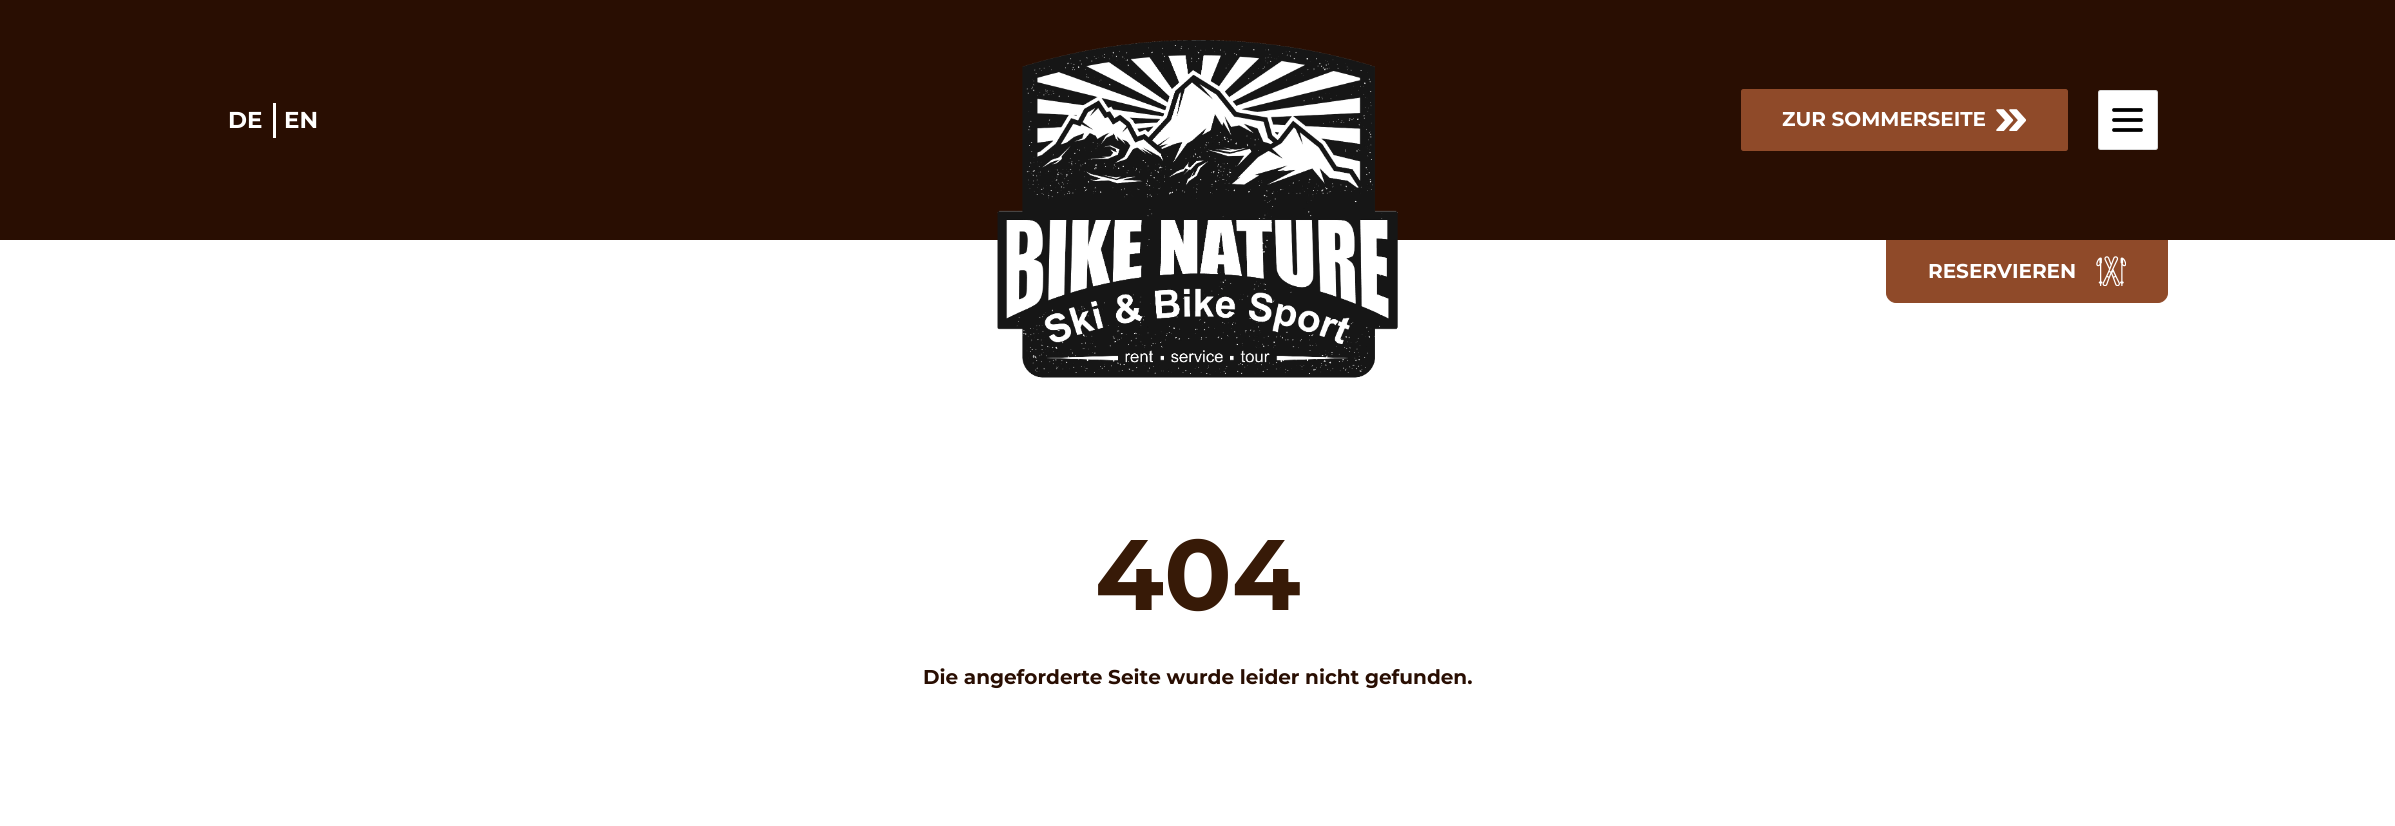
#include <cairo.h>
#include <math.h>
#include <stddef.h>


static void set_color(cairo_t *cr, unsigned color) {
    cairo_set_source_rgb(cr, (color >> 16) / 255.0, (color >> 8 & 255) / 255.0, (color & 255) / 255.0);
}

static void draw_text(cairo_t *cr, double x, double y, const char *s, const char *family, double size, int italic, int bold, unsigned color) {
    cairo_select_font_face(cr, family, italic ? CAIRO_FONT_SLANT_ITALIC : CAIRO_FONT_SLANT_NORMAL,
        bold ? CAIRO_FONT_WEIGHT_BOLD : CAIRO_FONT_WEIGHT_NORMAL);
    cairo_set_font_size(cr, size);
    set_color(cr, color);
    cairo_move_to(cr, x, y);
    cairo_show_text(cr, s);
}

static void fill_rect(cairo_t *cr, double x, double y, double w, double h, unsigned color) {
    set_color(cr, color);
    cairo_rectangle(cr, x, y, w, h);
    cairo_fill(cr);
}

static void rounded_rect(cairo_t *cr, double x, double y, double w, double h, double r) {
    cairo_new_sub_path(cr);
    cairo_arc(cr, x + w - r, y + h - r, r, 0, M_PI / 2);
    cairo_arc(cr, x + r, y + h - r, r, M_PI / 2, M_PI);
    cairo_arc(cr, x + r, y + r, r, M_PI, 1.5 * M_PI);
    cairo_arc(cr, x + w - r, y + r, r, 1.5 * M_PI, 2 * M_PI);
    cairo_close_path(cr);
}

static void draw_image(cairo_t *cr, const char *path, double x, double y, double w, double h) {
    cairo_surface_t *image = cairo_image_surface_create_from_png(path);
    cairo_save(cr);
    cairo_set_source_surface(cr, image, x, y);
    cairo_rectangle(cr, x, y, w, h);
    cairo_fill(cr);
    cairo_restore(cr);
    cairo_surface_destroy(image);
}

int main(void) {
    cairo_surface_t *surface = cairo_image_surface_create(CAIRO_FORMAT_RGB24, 2395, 826);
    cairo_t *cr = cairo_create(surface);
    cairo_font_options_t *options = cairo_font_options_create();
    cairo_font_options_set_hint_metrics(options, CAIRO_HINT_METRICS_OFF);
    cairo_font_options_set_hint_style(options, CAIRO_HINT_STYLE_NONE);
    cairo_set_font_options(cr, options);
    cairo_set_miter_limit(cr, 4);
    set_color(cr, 0xFFFFFF);
    cairo_paint(cr);
    fill_rect(cr, 0, 0, 2395, 240, 0x290E02);
    fill_rect(cr, 273, 103, 3, 35, 0xFFFFFF);
    draw_text(cr, 228, 128, "DE", "Montserrat", 23, 0, 1, 0xFFFFFF);
    draw_text(cr, 284, 128, "EN", "Montserrat", 23, 0, 1, 0xFFFFFF);
    draw_image(cr, "assets/img1.png", 997, 40, 401, 338);
    set_color(cr, 0x8F4A29);
    rounded_rect(cr, 1741.5, 89.5, 326, 61, 2);
    cairo_fill_preserve(cr);
    cairo_set_line_width(cr, 1);
    cairo_stroke(cr);
    draw_text(cr, 1782, 126, "ZUR SOMMERSEITE", "Montserrat", 20, 0, 1, 0xFFFFFF);
    draw_image(cr, "assets/img2.png", 1996, 109, 30, 22);
    rounded_rect(cr, 2098, 90, 60, 60, 2.5);
    cairo_fill(cr);
    rounded_rect(cr, 2098.5, 90.5, 59, 59, 2);
    cairo_set_source_rgba(cr, 0, 0, 0, 0.15);
    cairo_stroke(cr);
    cairo_new_path(cr);
    cairo_move_to(cr, 2114, 110);
    cairo_line_to(cr, 2141, 110);
    cairo_move_to(cr, 2114, 120);
    cairo_line_to(cr, 2141, 120);
    cairo_move_to(cr, 2114, 130);
    cairo_line_to(cr, 2141, 130);
    set_color(cr, 0x000000);
    cairo_set_line_width(cr, 3.8);
    cairo_set_line_cap(cr, CAIRO_LINE_CAP_ROUND);
    cairo_stroke(cr);
    set_color(cr, 0x8F4A29);
    cairo_new_path(cr);
    cairo_move_to(cr, 1886.5, 240.5);
    cairo_line_to(cr, 2167.5, 240.5);
    cairo_line_to(cr, 2167.5, 293);
    cairo_curve_to(cr, 2167.5, 298, 2163, 302.5, 2158, 302.5);
    cairo_line_to(cr, 1896, 302.5);
    cairo_curve_to(cr, 1891, 302.5, 1886.5, 298, 1886.5, 293);
    cairo_close_path(cr);
    cairo_fill_preserve(cr);
    cairo_set_line_width(cr, 1);
    cairo_set_line_cap(cr, CAIRO_LINE_CAP_BUTT);
    cairo_stroke(cr);
    draw_text(cr, 1928, 278, "RESERVIEREN", "Montserrat", 20, 0, 1, 0xFFFFFF);
    draw_image(cr, "assets/img3.png", 2096, 256, 30, 30);
    draw_text(cr, 1095, 610, "404", "Montserrat", 100, 0, 1, 0x371A07);
    draw_text(cr, 923, 684, "Die angeforderte Seite wurde leider nicht gefunden.", "Montserrat", 20, 0, 1, 0x290E02);
    cairo_surface_write_to_png(surface, "output.png");
    cairo_font_options_destroy(options);
    cairo_destroy(cr);
    cairo_surface_destroy(surface);
    return 0;
}
